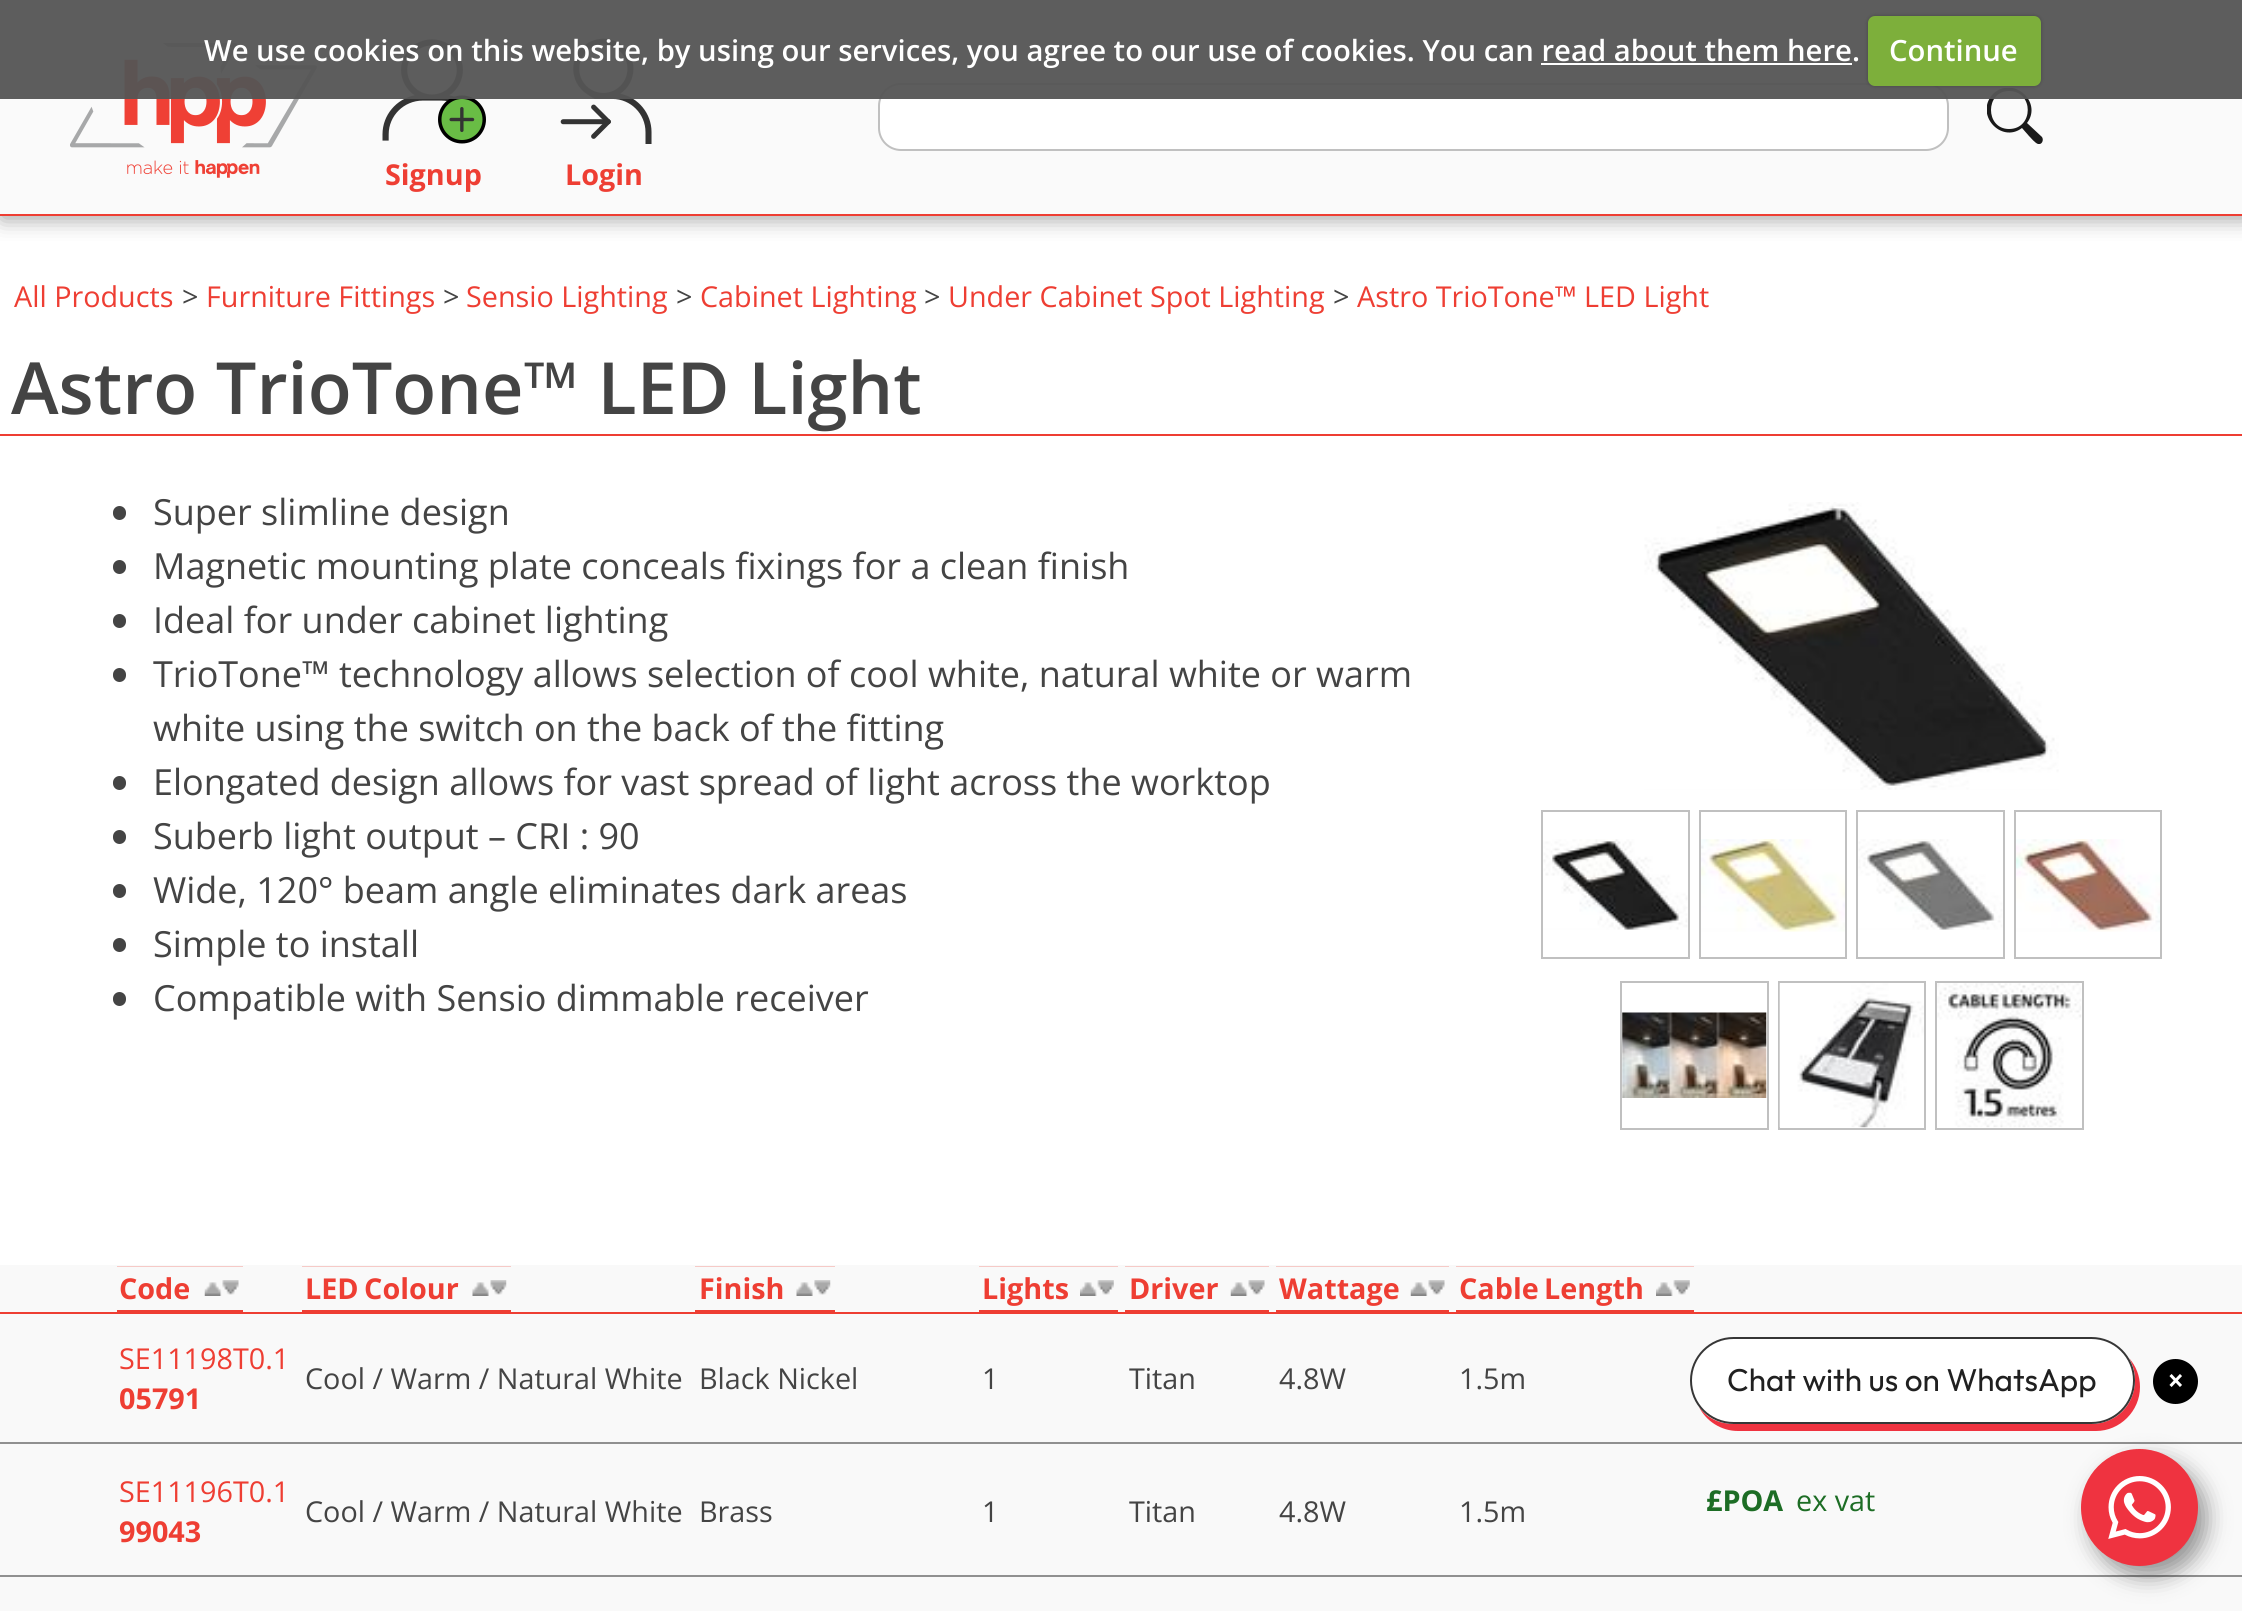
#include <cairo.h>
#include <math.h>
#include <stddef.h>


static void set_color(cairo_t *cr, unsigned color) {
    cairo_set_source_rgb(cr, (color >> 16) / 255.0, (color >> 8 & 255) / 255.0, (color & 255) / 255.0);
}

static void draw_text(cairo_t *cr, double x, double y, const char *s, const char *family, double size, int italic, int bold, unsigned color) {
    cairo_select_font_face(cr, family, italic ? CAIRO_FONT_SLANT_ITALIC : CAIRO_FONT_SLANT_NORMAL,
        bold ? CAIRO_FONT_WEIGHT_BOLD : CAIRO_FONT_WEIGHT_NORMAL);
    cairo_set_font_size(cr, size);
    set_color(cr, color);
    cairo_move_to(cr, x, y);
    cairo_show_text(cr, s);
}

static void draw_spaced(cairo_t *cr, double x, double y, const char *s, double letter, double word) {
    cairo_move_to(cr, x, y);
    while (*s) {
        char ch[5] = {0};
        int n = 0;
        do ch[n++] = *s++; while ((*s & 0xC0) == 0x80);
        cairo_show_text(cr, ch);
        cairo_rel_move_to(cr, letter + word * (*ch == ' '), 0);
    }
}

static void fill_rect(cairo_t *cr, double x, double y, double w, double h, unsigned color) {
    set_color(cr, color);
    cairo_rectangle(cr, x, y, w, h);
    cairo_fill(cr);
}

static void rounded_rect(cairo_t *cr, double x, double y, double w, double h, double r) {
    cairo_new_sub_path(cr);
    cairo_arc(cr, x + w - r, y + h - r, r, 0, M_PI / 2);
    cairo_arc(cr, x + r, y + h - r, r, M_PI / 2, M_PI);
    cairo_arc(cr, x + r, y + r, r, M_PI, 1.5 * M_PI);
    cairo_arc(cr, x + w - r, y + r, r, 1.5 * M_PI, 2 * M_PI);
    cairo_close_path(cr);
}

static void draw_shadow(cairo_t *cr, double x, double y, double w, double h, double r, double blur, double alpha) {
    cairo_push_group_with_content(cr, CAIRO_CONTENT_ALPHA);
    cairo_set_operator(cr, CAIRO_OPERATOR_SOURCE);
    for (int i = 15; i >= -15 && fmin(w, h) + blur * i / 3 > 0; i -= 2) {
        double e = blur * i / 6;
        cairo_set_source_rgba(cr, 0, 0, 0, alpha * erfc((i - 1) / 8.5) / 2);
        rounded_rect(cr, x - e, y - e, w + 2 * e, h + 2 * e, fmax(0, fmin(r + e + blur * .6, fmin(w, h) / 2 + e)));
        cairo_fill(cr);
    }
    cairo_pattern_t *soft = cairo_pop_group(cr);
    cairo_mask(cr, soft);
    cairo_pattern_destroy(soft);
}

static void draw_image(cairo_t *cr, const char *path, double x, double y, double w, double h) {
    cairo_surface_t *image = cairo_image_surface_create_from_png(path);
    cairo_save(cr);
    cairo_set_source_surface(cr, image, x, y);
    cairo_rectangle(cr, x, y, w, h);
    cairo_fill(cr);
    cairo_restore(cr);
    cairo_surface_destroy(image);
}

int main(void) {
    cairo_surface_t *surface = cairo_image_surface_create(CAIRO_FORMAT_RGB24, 2242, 1611);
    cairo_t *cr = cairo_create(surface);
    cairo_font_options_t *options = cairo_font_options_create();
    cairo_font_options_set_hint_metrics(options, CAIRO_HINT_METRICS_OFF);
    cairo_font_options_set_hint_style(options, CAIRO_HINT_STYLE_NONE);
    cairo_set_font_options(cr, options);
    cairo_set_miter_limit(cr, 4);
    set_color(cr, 0xFFFFFF);
    cairo_paint(cr);
    fill_rect(cr, 0, 0, 2242, 214, 0xFAFAFA);
    cairo_save(cr);
    cairo_rectangle(cr, 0, 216, 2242, 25);
    cairo_clip(cr);
    set_color(cr, 0x999999);
    draw_shadow(cr, 2, 2, 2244, 216, 0, 11, 1);
    cairo_restore(cr);
    draw_image(cr, "assets/img1.png", 70, 43, 247, 135);
    set_color(cr, 0xFFFFFF);
    rounded_rect(cr, 879, 84, 1069, 66, 22);
    cairo_fill_preserve(cr);
    set_color(cr, 0xC0C0C0);
    cairo_stroke(cr);
    cairo_save(cr);
    cairo_rectangle(cr, 1987, 88, 56, 56);
    cairo_clip(cr);
    set_color(cr, 0x1A1A1A);
    cairo_new_path(cr);
    cairo_move_to(cr, 2042, 137);
    cairo_line_to(cr, 2027, 123);
    cairo_curve_to(cr, 2043, 102, 2013, 75, 1993, 94);
    cairo_curve_to(cr, 1974, 114, 2001, 144, 2022, 128);
    cairo_line_to(cr, 2029, 136);
    cairo_curve_to(cr, 2031, 138, 2035, 143, 2038, 144);
    cairo_curve_to(cr, 2042, 145, 2044, 140, 2042, 137);
    cairo_close_path(cr);
    cairo_move_to(cr, 2009, 129);
    cairo_curve_to(cr, 1985, 129, 1985, 91, 2009, 91);
    cairo_curve_to(cr, 2034, 91, 2034, 129, 2009, 129);
    cairo_close_path(cr);
    cairo_fill(cr);
    cairo_restore(cr);
    draw_image(cr, "assets/img2.png", 382, 39, 104, 105);
    draw_image(cr, "assets/img3.png", 560, 38, 92, 106);
    cairo_set_source_rgba(cr, 0.337, 0.337, 0.337, 0.95);
    cairo_rectangle(cr, 0, 0, 2242, 99);
    cairo_fill(cr);
    draw_text(cr, 204, 61, "We use cookies on this website, by using our services, you agree to our use of cookies. You can read about them here.", "Open Sans SemiBold", 29.25, 0, 0, 0xFFFFFF);
    set_color(cr, 0x000000);
    draw_shadow(cr, 1868, 16, 173, 70, 7, 2, 0.25);
    set_color(cr, 0x7DAF3B);
    rounded_rect(cr, 1868, 16, 173, 70, 7);
    cairo_fill(cr);
    draw_text(cr, 1889, 61, "Continue", "Open Sans SemiBold", 29.25, 0, 0, 0xFFFFFF);
    fill_rect(cr, 1541, 63, 311, 2, 0xFFFFFF);
    fill_rect(cr, 0, 214, 2242, 2, 0xEE3E33);
    draw_text(cr, 385, 185, "Signup", "Open Sans", 28.75, 0, 1, 0xEE3E33);
    draw_text(cr, 565, 185, "Login", "Open Sans", 28.75, 0, 1, 0xEE3E33);
    draw_text(cr, 14, 307, "All Products", "Open Sans", 28.75, 0, 0, 0xEE3E33);
    draw_text(cr, 182, 307, ">", "Open Sans", 28.75, 0, 0, 0x444444);
    draw_text(cr, 206, 307, "Furniture Fittings", "Open Sans", 28.75, 0, 0, 0xEE3E33);
    draw_text(cr, 443, 307, ">", "Open Sans", 28.75, 0, 0, 0x444444);
    draw_text(cr, 466, 307, "Sensio Lighting", "Open Sans", 28.75, 0, 0, 0xEE3E33);
    draw_text(cr, 676, 307, ">", "Open Sans", 28.75, 0, 0, 0x444444);
    draw_text(cr, 700, 307, "Cabinet Lighting", "Open Sans", 28.75, 0, 0, 0xEE3E33);
    draw_text(cr, 924, 307, ">", "Open Sans", 28.75, 0, 0, 0x444444);
    draw_text(cr, 948, 307, "Under Cabinet Spot Lighting", "Open Sans", 28.75, 0, 0, 0xEE3E33);
    draw_text(cr, 1333, 307, ">", "Open Sans", 28.75, 0, 0, 0x444444);
    draw_text(cr, 1357, 307, "Astro TrioTone™ LED Light", "Open Sans", 28.75, 0, 0, 0xEE3E33);
    fill_rect(cr, 0, 434, 2242, 2, 0xEE3E33);
    draw_text(cr, 11, 414, "Astro TrioTone™ LED Light", "Open Sans SemiBold", 72, 0, 0, 0x444444);
    rounded_rect(cr, 113, 506, 13, 14, 6.5);
    cairo_fill(cr);
    draw_text(cr, 153, 525, "Super slimline design", "Open Sans", 36, 0, 0, 0x444444);
    rounded_rect(cr, 113, 560, 13, 14, 6.5);
    cairo_fill(cr);
    draw_text(cr, 153, 579, "Magnetic mounting plate conceals fixings for a clean finish", "Open Sans", 36, 0, 0, 0x444444);
    rounded_rect(cr, 113, 614, 13, 14, 6.5);
    cairo_fill(cr);
    draw_text(cr, 153, 633, "Ideal for under cabinet lighting", "Open Sans", 36, 0, 0, 0x444444);
    rounded_rect(cr, 113, 668, 13, 14, 6.5);
    cairo_fill(cr);
    draw_text(cr, 153, 687, "TrioTone™ technology allows selection of cool white, natural white or warm", "Open Sans", 36, 0, 0, 0x444444);
    draw_text(cr, 153, 741, "white using the switch on the back of the fitting", "Open Sans", 36, 0, 0, 0x444444);
    rounded_rect(cr, 113, 776, 13, 14, 6.5);
    cairo_fill(cr);
    draw_text(cr, 153, 795, "Elongated design allows for vast spread of light across the worktop", "Open Sans", 36, 0, 0, 0x444444);
    rounded_rect(cr, 113, 830, 13, 14, 6.5);
    cairo_fill(cr);
    draw_text(cr, 153, 849, "Suberb light output – CRI : 90", "Open Sans", 36, 0, 0, 0x444444);
    rounded_rect(cr, 113, 884, 13, 14, 6.5);
    cairo_fill(cr);
    draw_text(cr, 153, 903, "Wide, 120° beam angle eliminates dark areas", "Open Sans", 36, 0, 0, 0x444444);
    rounded_rect(cr, 113, 938, 13, 14, 6.5);
    cairo_fill(cr);
    draw_text(cr, 153, 957, "Simple to install", "Open Sans", 36, 0, 0, 0x444444);
    rounded_rect(cr, 113, 992, 13, 14, 6.5);
    cairo_fill(cr);
    draw_text(cr, 153, 1011, "Compatible with Sensio dimmable receiver", "Open Sans", 36, 0, 0, 0x444444);
    draw_image(cr, "assets/img4.png", 1644, 502, 415, 288);
    cairo_rectangle(cr, 1542, 811, 147, 147);
    set_color(cr, 0xC0C0C0);
    cairo_stroke(cr);
    draw_image(cr, "assets/img5.png", 1543, 839, 145, 91);
    cairo_rectangle(cr, 1700, 811, 146, 147);
    cairo_stroke(cr);
    draw_image(cr, "assets/img6.png", 1701, 839, 144, 93);
    cairo_rectangle(cr, 1857, 811, 147, 147);
    cairo_stroke(cr);
    draw_image(cr, "assets/img7.png", 1858, 839, 145, 91);
    cairo_rectangle(cr, 2015, 811, 146, 147);
    cairo_stroke(cr);
    draw_image(cr, "assets/img8.png", 2016, 839, 144, 93);
    cairo_rectangle(cr, 1621, 982, 147, 147);
    cairo_stroke(cr);
    draw_image(cr, "assets/img9.png", 1622, 1012, 145, 86);
    cairo_rectangle(cr, 1779, 982, 146, 147);
    cairo_stroke(cr);
    draw_image(cr, "assets/img10.png", 1779, 983, 145, 145);
    cairo_rectangle(cr, 1936, 982, 147, 147);
    cairo_stroke(cr);
    draw_image(cr, "assets/img11.png", 1937, 983, 145, 145);
    fill_rect(cr, 0, 1312, 2242, 2, 0xEE3E33);
    fill_rect(cr, 0, 1265, 2242, 47, 0xF9F9F9);
    draw_image(cr, "assets/img12.png", 117, 1266, 126, 46);
    draw_text(cr, 119, 1299, "Code", "Open Sans", 28.75, 0, 1, 0xEE3E33);
    draw_image(cr, "assets/img13.png", 302, 1266, 209, 46);
    draw_spaced(cr, 305, 1299, "LED Colour", 0, -2);
    draw_image(cr, "assets/img14.png", 695, 1266, 140, 46);
    draw_text(cr, 699, 1299, "Finish", "Open Sans", 28.75, 0, 1, 0xEE3E33);
    draw_image(cr, "assets/img15.png", 979, 1266, 139, 46);
    draw_text(cr, 982, 1299, "Lights", "Open Sans", 28.75, 0, 1, 0xEE3E33);
    draw_image(cr, "assets/img16.png", 1125, 1266, 144, 46);
    draw_text(cr, 1129, 1299, "Driver", "Open Sans", 28.75, 0, 1, 0xEE3E33);
    draw_image(cr, "assets/img17.png", 1276, 1266, 173, 46);
    draw_text(cr, 1279, 1299, "Wattage", "Open Sans", 28.75, 0, 1, 0xEE3E33);
    draw_image(cr, "assets/img18.png", 1456, 1266, 238, 46);
    draw_spaced(cr, 1459, 1299, "Cable Length", 0, -2);
    fill_rect(cr, 0, 1314, 2242, 261, 0xF9F9F9);
    draw_text(cr, 119, 1369, "SE11198T0.1", "Open Sans", 28.75, 0, 0, 0xEE3E33);
    draw_text(cr, 119, 1409, "05791", "Open Sans", 28.75, 0, 1, 0xEE3E33);
    draw_text(cr, 305, 1389, "Cool / Warm / Natural White", "Open Sans", 28.75, 0, 0, 0x444444);
    draw_text(cr, 699, 1389, "Black Nickel", "Open Sans", 28.75, 0, 0, 0x444444);
    draw_text(cr, 982, 1389, "1", "Open Sans", 28.75, 0, 0, 0x444444);
    draw_text(cr, 1129, 1389, "Titan", "Open Sans", 28.75, 0, 0, 0x444444);
    draw_text(cr, 1279, 1389, "4.8W", "Open Sans", 28.75, 0, 0, 0x444444);
    draw_text(cr, 1459, 1389, "1.5m", "Open Sans", 28.75, 0, 0, 0x444444);
    fill_rect(cr, 0, 1442, 2242, 2, 0x909090);
    draw_text(cr, 119, 1502, "SE11196T0.1", "Open Sans", 28.75, 0, 0, 0xEE3E33);
    draw_text(cr, 119, 1542, "99043", "Open Sans", 28.75, 0, 1, 0xEE3E33);
    draw_text(cr, 305, 1522, "Cool / Warm / Natural White", "Open Sans", 28.75, 0, 0, 0x444444);
    draw_text(cr, 699, 1522, "Brass", "Open Sans", 28.75, 0, 0, 0x444444);
    draw_text(cr, 982, 1522, "1", "Open Sans", 28.75, 0, 0, 0x444444);
    draw_text(cr, 1129, 1522, "Titan", "Open Sans", 28.75, 0, 0, 0x444444);
    draw_text(cr, 1279, 1522, "4.8W", "Open Sans", 28.75, 0, 0, 0x444444);
    draw_text(cr, 1459, 1522, "1.5m", "Open Sans", 28.75, 0, 0, 0x444444);
    draw_text(cr, 1706, 1511, "£POA", "Open Sans", 28.75, 0, 1, 0x1D6D25);
    draw_text(cr, 1796, 1511, "ex vat", "Open Sans", 28.75, 0, 0, 0x1D6D25);
    fill_rect(cr, 0, 1577, 2242, 34, 0xF9F9F9);
    fill_rect(cr, 0, 1575, 2242, 2, 0x909090);
    set_color(cr, 0x000000);
    draw_shadow(cr, 2090, 1460, 117, 117, 58.5, 11, 0.4);
    set_color(cr, 0xEF3340);
    cairo_new_path(cr);
    cairo_move_to(cr, 1699, 1407);
    cairo_curve_to(cr, 1706, 1421, 1721, 1431, 1738, 1431);
    cairo_line_to(cr, 2096, 1431);
    cairo_curve_to(cr, 2120, 1431, 2140, 1411, 2140, 1387);
    cairo_curve_to(cr, 2140, 1376, 2136, 1366, 2129, 1358);
    cairo_curve_to(cr, 2133, 1365, 2135, 1372, 2135, 1380);
    cairo_curve_to(cr, 2135, 1405, 2116, 1424, 2091, 1424);
    cairo_line_to(cr, 1734, 1424);
    cairo_curve_to(cr, 1719, 1424, 1707, 1418, 1699, 1407);
    cairo_close_path(cr);
    cairo_fill(cr);
    set_color(cr, 0xFFFFFF);
    rounded_rect(cr, 1691, 1338, 443, 85, 42.5);
    cairo_fill_preserve(cr);
    set_color(cr, 0x363636);
    cairo_stroke(cr);
    draw_text(cr, 1727, 1391, "Chat with us on WhatsApp", "Outfit", 31.5, 0, 0, 0x202020);
    set_color(cr, 0x000000);
    cairo_new_path(cr);
    cairo_arc(cr, 2175.5, 1381.5, 22.5, 0, 2 * M_PI);
    cairo_fill(cr);
    cairo_new_path(cr);
    cairo_move_to(cr, 2170.5, 1375);
    cairo_line_to(cr, 2181, 1386);
    cairo_move_to(cr, 2170.5, 1386);
    cairo_line_to(cr, 2181, 1375);
    set_color(cr, 0xFFFFFF);
    cairo_set_line_width(cr, 3);
    cairo_stroke(cr);
    set_color(cr, 0xEF3340);
    cairo_arc(cr, 2139.5, 1507.5, 58.5, 0, 2 * M_PI);
    cairo_fill(cr);
    draw_image(cr, "assets/img19.png", 2108, 1476, 63, 63);
    cairo_surface_write_to_png(surface, "output.png");
    cairo_font_options_destroy(options);
    cairo_destroy(cr);
    cairo_surface_destroy(surface);
    return 0;
}
